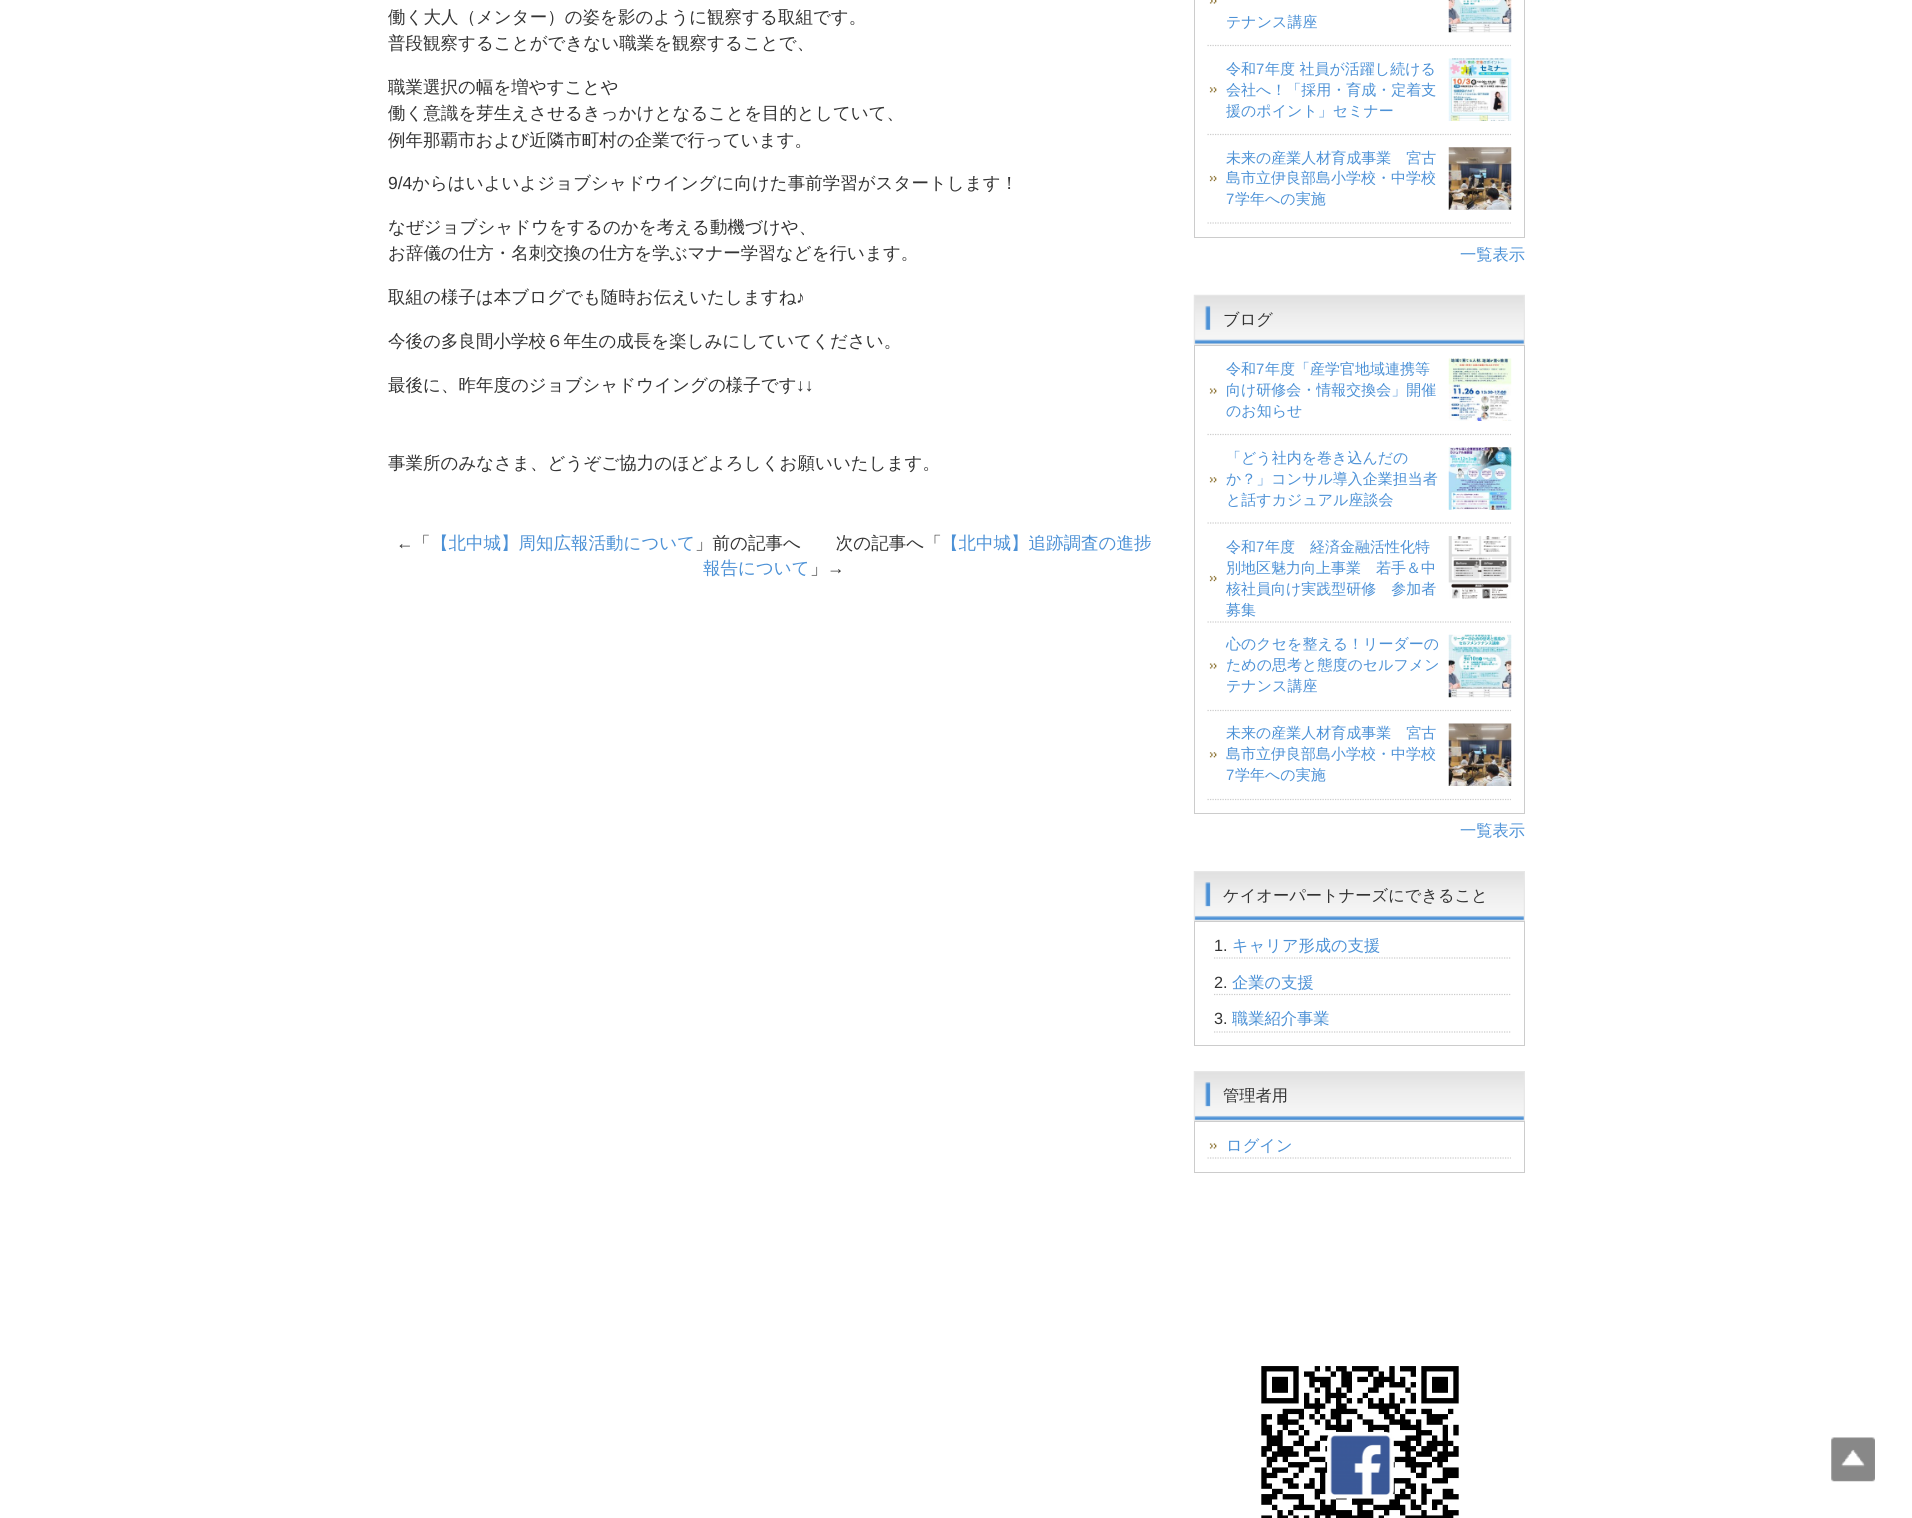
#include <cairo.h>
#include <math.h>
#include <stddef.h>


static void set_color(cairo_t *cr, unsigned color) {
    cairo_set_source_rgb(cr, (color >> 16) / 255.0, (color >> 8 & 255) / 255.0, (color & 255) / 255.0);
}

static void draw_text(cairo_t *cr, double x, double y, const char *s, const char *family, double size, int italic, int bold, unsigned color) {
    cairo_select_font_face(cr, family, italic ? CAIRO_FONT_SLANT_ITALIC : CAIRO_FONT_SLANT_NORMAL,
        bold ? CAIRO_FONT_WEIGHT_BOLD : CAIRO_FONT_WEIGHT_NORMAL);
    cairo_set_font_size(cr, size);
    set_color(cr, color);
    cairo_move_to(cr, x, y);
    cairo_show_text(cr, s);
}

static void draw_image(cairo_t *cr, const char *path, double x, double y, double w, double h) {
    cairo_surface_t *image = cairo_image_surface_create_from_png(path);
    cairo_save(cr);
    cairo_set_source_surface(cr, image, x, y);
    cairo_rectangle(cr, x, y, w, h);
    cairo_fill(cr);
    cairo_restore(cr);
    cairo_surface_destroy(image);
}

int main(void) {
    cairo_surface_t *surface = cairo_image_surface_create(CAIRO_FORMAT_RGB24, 1912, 1518);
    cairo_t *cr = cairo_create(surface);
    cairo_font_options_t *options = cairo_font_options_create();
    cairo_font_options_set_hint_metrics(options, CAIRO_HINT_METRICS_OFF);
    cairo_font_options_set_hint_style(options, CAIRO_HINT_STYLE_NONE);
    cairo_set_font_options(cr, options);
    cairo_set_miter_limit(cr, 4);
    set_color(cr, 0xFFFFFF);
    cairo_paint(cr);
    draw_text(cr, 388, 23, "働く大人（メンター）の姿を影のように観察する取組です。", "WenQuanYi Zen Hei Medium", 17.5, 0, 0, 0x333333);
    draw_text(cr, 388, 49, "普段観察することができない職業を観察することで、", "WenQuanYi Zen Hei Medium", 17.5, 0, 0, 0x333333);
    draw_text(cr, 388, 93, "職業選択の幅を増やすことや", "WenQuanYi Zen Hei Medium", 17.5, 0, 0, 0x333333);
    draw_text(cr, 388, 119, "働く意識を芽生えさせるきっかけとなることを目的としていて、", "WenQuanYi Zen Hei Medium", 17.5, 0, 0, 0x333333);
    draw_text(cr, 388, 146, "例年那覇市および近隣市町村の企業で行っています。", "WenQuanYi Zen Hei Medium", 17.5, 0, 0, 0x333333);
    draw_text(cr, 388, 189, "9/4", "Liberation Sans", 17.5, 0, 0, 0x333333);
    draw_text(cr, 412, 189, "からはいよいよジョブシャドウイングに向けた事前学習がスタートします！", "WenQuanYi Zen Hei Medium", 17.5, 0, 0, 0x333333);
    draw_text(cr, 388, 233, "なぜジョブシャドウをするのかを考える動機づけや、", "WenQuanYi Zen Hei Medium", 17.5, 0, 0, 0x333333);
    draw_text(cr, 388, 259, "お辞儀の仕方・名刺交換の仕方を学ぶマナー学習などを行います。", "WenQuanYi Zen Hei Medium", 17.5, 0, 0, 0x333333);
    draw_text(cr, 388, 303, "取組の様子は本ブログでも随時お伝えいたしますね", "WenQuanYi Zen Hei Medium", 17.5, 0, 0, 0x333333);
    draw_text(cr, 796, 303, "♪", "Liberation Sans", 17.5, 0, 0, 0x333333);
    draw_text(cr, 388, 347, "今後の多良間小学校６年生の成長を楽しみにしていてください。", "WenQuanYi Zen Hei Medium", 17.5, 0, 0, 0x333333);
    draw_text(cr, 388, 391, "最後に、昨年度のジョブシャドウイングの様子です", "WenQuanYi Zen Hei Medium", 17.5, 0, 0, 0x333333);
    draw_text(cr, 796, 391, "↓↓", "Liberation Sans", 17.5, 0, 0, 0x333333);
    draw_text(cr, 388, 469, "事業所のみなさま、どうぞご協力のほどよろしくお願いいたします。", "WenQuanYi Zen Hei Medium", 17.5, 0, 0, 0x333333);
    draw_text(cr, 396, 549, "←", "Liberation Sans", 17.5, 0, 0, 0x333333);
    draw_text(cr, 413, 549, "「", "WenQuanYi Zen Hei Medium", 17.5, 0, 0, 0x333333);
    draw_text(cr, 431, 549, "【北中城】周知広報活動について", "WenQuanYi Zen Hei Medium", 17.5, 0, 0, 0x4C91D6);
    draw_text(cr, 695, 549, "」前の記事へ　　次の記事へ「", "WenQuanYi Zen Hei Medium", 17.5, 0, 0, 0x333333);
    draw_text(cr, 941, 549, "【北中城】追跡調査の進捗", "WenQuanYi Zen Hei Medium", 17.5, 0, 0, 0x4C91D6);
    draw_text(cr, 703, 574, "報告について", "WenQuanYi Zen Hei Medium", 17.5, 0, 0, 0x4C91D6);
    draw_text(cr, 810, 574, "」", "WenQuanYi Zen Hei Medium", 17.5, 0, 0, 0x333333);
    draw_text(cr, 827, 574, "→", "Liberation Sans", 17.5, 0, 0, 0x333333);
    cairo_rectangle(cr, 1194.5, -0.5, 330, 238);
    set_color(cr, 0xCCCCCC);
    cairo_set_line_width(cr, 1);
    cairo_stroke(cr);
    cairo_new_path(cr);
    cairo_move_to(cr, 1207.5, 45.5);
    cairo_line_to(cr, 1511, 45.5);
    cairo_set_line_width(cr, 1.2);
    cairo_set_dash(cr, (double[]){1.25, 1.25}, 2, 0);
    cairo_stroke(cr);
    draw_image(cr, "assets/img1.png", 1209, 0, 8, 4);
    draw_text(cr, 1226, 27, "テナンス講座", "WenQuanYi Zen Hei Medium", 15, 0, 0, 0x4C91D6);
    draw_image(cr, "assets/img2.png", 1448, 0, 64, 33);
    cairo_new_path(cr);
    cairo_move_to(cr, 1207.5, 134.5);
    cairo_line_to(cr, 1511, 134.5);
    set_color(cr, 0xCCCCCC);
    cairo_stroke(cr);
    draw_image(cr, "assets/img3.png", 1209, 87, 8, 6);
    draw_text(cr, 1226, 74, "令和", "WenQuanYi Zen Hei Medium", 15, 0, 0, 0x4C91D6);
    draw_text(cr, 1256, 74, "7", "Liberation Sans", 15, 0, 0, 0x4C91D6);
    draw_text(cr, 1265, 74, "年度 社員が活躍し続ける", "WenQuanYi Zen Hei Medium", 15, 0, 0, 0x4C91D6);
    draw_text(cr, 1226, 95, "会社へ！「採用・育成・定着支", "WenQuanYi Zen Hei Medium", 15, 0, 0, 0x4C91D6);
    draw_text(cr, 1226, 116, "援のポイント」セミナー", "WenQuanYi Zen Hei Medium", 15, 0, 0, 0x4C91D6);
    draw_image(cr, "assets/img4.png", 1448, 58, 64, 63);
    cairo_new_path(cr);
    cairo_move_to(cr, 1207.5, 223);
    cairo_line_to(cr, 1511, 223);
    set_color(cr, 0xCCCCCC);
    cairo_stroke(cr);
    draw_image(cr, "assets/img5.png", 1209, 175, 8, 7);
    draw_text(cr, 1226, 163, "未来の産業人材育成事業　宮古", "WenQuanYi Zen Hei Medium", 15, 0, 0, 0x4C91D6);
    draw_text(cr, 1226, 183, "島市立伊良部島小学校・中学校", "WenQuanYi Zen Hei Medium", 15, 0, 0, 0x4C91D6);
    draw_text(cr, 1226, 204, "7", "Liberation Sans", 15, 0, 0, 0x4C91D6);
    draw_text(cr, 1235, 204, "学年への実施", "WenQuanYi Zen Hei Medium", 15, 0, 0, 0x4C91D6);
    draw_image(cr, "assets/img6.png", 1448, 147, 64, 63);
    draw_text(cr, 1460, 260, "一覧表示", "WenQuanYi Zen Hei Medium", 16.25, 0, 0, 0x4C91D6);
    draw_image(cr, "assets/img7.png", 1193, 294, 332, 51);
    draw_text(cr, 1223, 325, "ブログ", "WenQuanYi Zen Hei Medium", 16.25, 0, 0, 0x333333);
    cairo_rectangle(cr, 1194.5, 345.5, 330, 468);
    set_color(cr, 0xCCCCCC);
    cairo_set_line_width(cr, 1);
    cairo_set_dash(cr, NULL, 0, 0);
    cairo_stroke(cr);
    cairo_new_path(cr);
    cairo_move_to(cr, 1207.5, 434.5);
    cairo_line_to(cr, 1511, 434.5);
    cairo_set_line_width(cr, 1.2);
    cairo_set_dash(cr, (double[]){1.25, 1.25}, 2, 0);
    cairo_stroke(cr);
    draw_image(cr, "assets/img8.png", 1209, 388, 8, 6);
    draw_text(cr, 1226, 374, "令和", "WenQuanYi Zen Hei Medium", 15, 0, 0, 0x4C91D6);
    draw_text(cr, 1256, 374, "7", "Liberation Sans", 15, 0, 0, 0x4C91D6);
    draw_text(cr, 1265, 374, "年度「産学官地域連携等", "WenQuanYi Zen Hei Medium", 15, 0, 0, 0x4C91D6);
    draw_text(cr, 1226, 395, "向け研修会・情報交換会」開催", "WenQuanYi Zen Hei Medium", 15, 0, 0, 0x4C91D6);
    draw_text(cr, 1226, 416, "のお知らせ", "WenQuanYi Zen Hei Medium", 15, 0, 0, 0x4C91D6);
    draw_image(cr, "assets/img9.png", 1448, 358, 64, 63);
    cairo_new_path(cr);
    cairo_move_to(cr, 1207.5, 523);
    cairo_line_to(cr, 1511, 523);
    set_color(cr, 0xCCCCCC);
    cairo_stroke(cr);
    draw_image(cr, "assets/img3.png", 1209, 477, 8, 6);
    draw_text(cr, 1226, 463, "「どう社内を巻き込んだの", "WenQuanYi Zen Hei Medium", 15, 0, 0, 0x4C91D6);
    draw_text(cr, 1226, 484, "か？」コンサル導入企業担当者", "WenQuanYi Zen Hei Medium", 15, 0, 0, 0x4C91D6);
    draw_text(cr, 1226, 505, "と話すカジュアル座談会", "WenQuanYi Zen Hei Medium", 15, 0, 0, 0x4C91D6);
    draw_image(cr, "assets/img10.png", 1448, 447, 64, 63);
    cairo_new_path(cr);
    cairo_move_to(cr, 1207.5, 622);
    cairo_line_to(cr, 1511, 622);
    set_color(cr, 0xCCCCCC);
    cairo_stroke(cr);
    draw_image(cr, "assets/img5.png", 1209, 575, 8, 7);
    draw_text(cr, 1226, 552, "令和", "WenQuanYi Zen Hei Medium", 15, 0, 0, 0x4C91D6);
    draw_text(cr, 1256, 552, "7", "Liberation Sans", 15, 0, 0, 0x4C91D6);
    draw_text(cr, 1265, 552, "年度　経済金融活性化特", "WenQuanYi Zen Hei Medium", 15, 0, 0, 0x4C91D6);
    draw_text(cr, 1226, 573, "別地区魅力向上事業　若手＆中", "WenQuanYi Zen Hei Medium", 15, 0, 0, 0x4C91D6);
    draw_text(cr, 1226, 594, "核社員向け実践型研修　参加者", "WenQuanYi Zen Hei Medium", 15, 0, 0, 0x4C91D6);
    draw_text(cr, 1226, 615, "募集", "WenQuanYi Zen Hei Medium", 15, 0, 0, 0x4C91D6);
    draw_image(cr, "assets/img11.png", 1448, 536, 64, 63);
    cairo_new_path(cr);
    cairo_move_to(cr, 1207.5, 710.5);
    cairo_line_to(cr, 1511, 710.5);
    set_color(cr, 0xCCCCCC);
    cairo_stroke(cr);
    draw_image(cr, "assets/img8.png", 1209, 663, 8, 6);
    draw_text(cr, 1226, 649, "心のクセを整える！リーダーの", "WenQuanYi Zen Hei Medium", 15, 0, 0, 0x4C91D6);
    draw_text(cr, 1226, 670, "ための思考と態度のセルフメン", "WenQuanYi Zen Hei Medium", 15, 0, 0, 0x4C91D6);
    draw_text(cr, 1226, 691, "テナンス講座", "WenQuanYi Zen Hei Medium", 15, 0, 0, 0x4C91D6);
    draw_image(cr, "assets/img12.png", 1448, 634, 64, 64);
    cairo_new_path(cr);
    cairo_move_to(cr, 1207.5, 799.5);
    cairo_line_to(cr, 1511, 799.5);
    set_color(cr, 0xCCCCCC);
    cairo_stroke(cr);
    draw_image(cr, "assets/img3.png", 1209, 752, 8, 6);
    draw_text(cr, 1226, 738, "未来の産業人材育成事業　宮古", "WenQuanYi Zen Hei Medium", 15, 0, 0, 0x4C91D6);
    draw_text(cr, 1226, 759, "島市立伊良部島小学校・中学校", "WenQuanYi Zen Hei Medium", 15, 0, 0, 0x4C91D6);
    draw_text(cr, 1226, 780, "7", "Liberation Sans", 15, 0, 0, 0x4C91D6);
    draw_text(cr, 1235, 780, "学年への実施", "WenQuanYi Zen Hei Medium", 15, 0, 0, 0x4C91D6);
    draw_image(cr, "assets/img13.png", 1448, 723, 64, 63);
    draw_text(cr, 1460, 836, "一覧表示", "WenQuanYi Zen Hei Medium", 16.25, 0, 0, 0x4C91D6);
    draw_image(cr, "assets/img14.png", 1193, 871, 332, 50);
    draw_text(cr, 1223, 901, "ケイオーパートナーズにできること", "WenQuanYi Zen Hei Medium", 16.25, 0, 0, 0x333333);
    cairo_rectangle(cr, 1194.5, 921.5, 330, 124);
    set_color(cr, 0xCCCCCC);
    cairo_set_line_width(cr, 1);
    cairo_set_dash(cr, NULL, 0, 0);
    cairo_stroke(cr);
    cairo_new_path(cr);
    cairo_move_to(cr, 1214, 958);
    cairo_line_to(cr, 1511, 958);
    cairo_set_line_width(cr, 1.2);
    cairo_set_dash(cr, (double[]){1.25, 1.25}, 2, 0);
    cairo_stroke(cr);
    draw_text(cr, 1214, 951, "1.", "Liberation Sans", 16.25, 0, 0, 0x333333);
    draw_text(cr, 1232, 951, "キャリア形成の支援", "WenQuanYi Zen Hei Medium", 16.25, 0, 0, 0x4C91D6);
    cairo_new_path(cr);
    cairo_move_to(cr, 1214, 994.5);
    cairo_line_to(cr, 1511, 994.5);
    set_color(cr, 0xCCCCCC);
    cairo_stroke(cr);
    draw_text(cr, 1214, 988, "2.", "Liberation Sans", 16.25, 0, 0, 0x333333);
    draw_text(cr, 1232, 988, "企業の支援", "WenQuanYi Zen Hei Medium", 16.25, 0, 0, 0x4C91D6);
    cairo_new_path(cr);
    cairo_move_to(cr, 1214, 1032);
    cairo_line_to(cr, 1511, 1032);
    set_color(cr, 0xCCCCCC);
    cairo_stroke(cr);
    draw_text(cr, 1214, 1024, "3.", "Liberation Sans", 16.25, 0, 0, 0x333333);
    draw_text(cr, 1232, 1024, "職業紹介事業", "WenQuanYi Zen Hei Medium", 16.25, 0, 0, 0x4C91D6);
    draw_image(cr, "assets/img15.png", 1193, 1071, 332, 50);
    draw_text(cr, 1223, 1101, "管理者用", "WenQuanYi Zen Hei Medium", 16.25, 0, 0, 0x333333);
    cairo_rectangle(cr, 1194.5, 1121.5, 330, 51);
    set_color(cr, 0xCCCCCC);
    cairo_set_line_width(cr, 1);
    cairo_set_dash(cr, NULL, 0, 0);
    cairo_stroke(cr);
    cairo_new_path(cr);
    cairo_move_to(cr, 1207.5, 1158);
    cairo_line_to(cr, 1511, 1158);
    cairo_set_line_width(cr, 1.2);
    cairo_set_dash(cr, (double[]){1.25, 1.25}, 2, 0);
    cairo_stroke(cr);
    draw_image(cr, "assets/img8.png", 1209, 1143, 8, 6);
    draw_text(cr, 1226, 1151, "ログイン", "WenQuanYi Zen Hei Medium", 16.25, 0, 0, 0x4C91D6);
    draw_image(cr, "assets/img16.png", 1261, 1366, 198, 152);
    draw_image(cr, "assets/img17.png", 1831, 1437, 44, 45);
    cairo_surface_write_to_png(surface, "output.png");
    cairo_font_options_destroy(options);
    cairo_destroy(cr);
    cairo_surface_destroy(surface);
    return 0;
}
